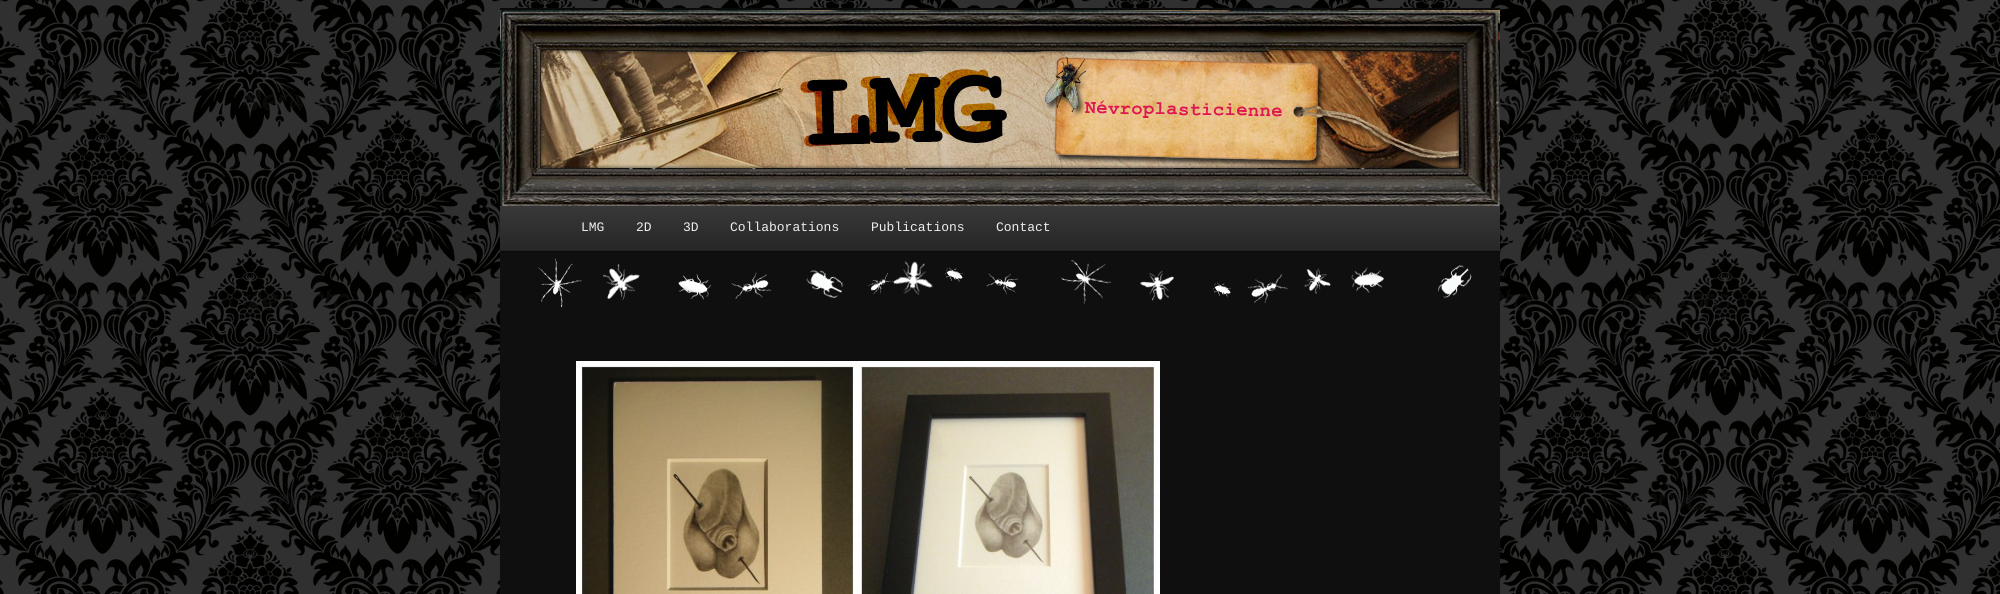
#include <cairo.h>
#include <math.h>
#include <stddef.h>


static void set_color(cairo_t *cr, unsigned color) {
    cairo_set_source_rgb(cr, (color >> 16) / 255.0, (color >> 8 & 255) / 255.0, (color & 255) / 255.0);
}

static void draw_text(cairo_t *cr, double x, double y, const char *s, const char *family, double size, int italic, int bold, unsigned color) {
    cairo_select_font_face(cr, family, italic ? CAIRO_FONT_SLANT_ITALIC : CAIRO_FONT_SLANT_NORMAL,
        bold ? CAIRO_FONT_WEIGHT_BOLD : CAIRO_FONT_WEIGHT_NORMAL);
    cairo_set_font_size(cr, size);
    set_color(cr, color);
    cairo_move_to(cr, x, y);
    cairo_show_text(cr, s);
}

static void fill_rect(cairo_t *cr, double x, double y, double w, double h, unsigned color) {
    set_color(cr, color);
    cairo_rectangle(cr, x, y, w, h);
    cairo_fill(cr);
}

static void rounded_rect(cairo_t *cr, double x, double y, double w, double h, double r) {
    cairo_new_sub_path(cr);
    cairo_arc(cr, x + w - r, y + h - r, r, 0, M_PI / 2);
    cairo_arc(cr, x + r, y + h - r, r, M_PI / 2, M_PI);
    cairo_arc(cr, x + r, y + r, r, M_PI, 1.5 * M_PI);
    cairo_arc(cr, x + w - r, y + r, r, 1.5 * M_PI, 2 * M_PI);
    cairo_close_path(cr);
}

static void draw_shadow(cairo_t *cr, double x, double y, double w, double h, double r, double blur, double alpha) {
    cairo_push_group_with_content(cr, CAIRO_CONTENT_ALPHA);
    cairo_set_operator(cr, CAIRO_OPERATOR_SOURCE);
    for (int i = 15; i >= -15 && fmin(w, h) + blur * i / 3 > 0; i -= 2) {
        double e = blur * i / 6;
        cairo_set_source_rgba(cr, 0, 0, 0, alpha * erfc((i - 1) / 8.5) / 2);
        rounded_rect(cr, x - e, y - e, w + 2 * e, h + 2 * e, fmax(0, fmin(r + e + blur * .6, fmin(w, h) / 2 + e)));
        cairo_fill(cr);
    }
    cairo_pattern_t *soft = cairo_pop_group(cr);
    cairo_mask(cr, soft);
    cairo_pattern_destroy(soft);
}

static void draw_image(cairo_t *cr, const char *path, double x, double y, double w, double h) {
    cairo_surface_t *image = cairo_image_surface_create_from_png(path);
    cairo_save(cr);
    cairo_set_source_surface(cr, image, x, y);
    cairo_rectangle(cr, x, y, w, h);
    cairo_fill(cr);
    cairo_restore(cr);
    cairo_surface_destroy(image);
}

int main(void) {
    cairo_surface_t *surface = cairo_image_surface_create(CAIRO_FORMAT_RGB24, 2000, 594);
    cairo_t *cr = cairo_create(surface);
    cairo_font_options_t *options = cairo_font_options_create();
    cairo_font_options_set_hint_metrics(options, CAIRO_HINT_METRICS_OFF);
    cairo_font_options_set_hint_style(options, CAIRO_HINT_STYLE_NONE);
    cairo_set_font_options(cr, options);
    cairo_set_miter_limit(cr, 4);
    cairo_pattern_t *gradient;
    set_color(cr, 0xFFFFFF);
    cairo_paint(cr);
    draw_image(cr, "assets/img1.png", 0, 0, 2000, 594);
    fill_rect(cr, 500, 251, 1000, 343, 0x0F0F0F);
    fill_rect(cr, 500, 8, 1000, 2, 0x0A0A0A);
    set_color(cr, 0x000000);
    draw_shadow(cr, 500, 207, 1000, 45, 0, 1, 0.4);
    draw_image(cr, "assets/img2.png", 500, 10, 1000, 196);
    gradient = cairo_pattern_create_linear(1000, 206, 1000, 250);
    cairo_pattern_add_color_stop_rgba(gradient, 0, 0.22, 0.22, 0.22, 1);
    cairo_pattern_add_color_stop_rgba(gradient, 1, 0.153, 0.153, 0.153, 1);
    cairo_set_source(cr, gradient);
    cairo_pattern_destroy(gradient);
    cairo_rectangle(cr, 500, 206, 1000, 44);
    cairo_fill(cr);
    fill_rect(cr, 500, 250, 1000, 1, 0x222222);
    draw_text(cr, 581, 231, "LMG", "Liberation Mono", 13, 0, 0, 0xEEEEEE);
    draw_text(cr, 636, 231, "2D", "Liberation Mono", 13, 0, 0, 0xEEEEEE);
    draw_text(cr, 683, 231, "3D", "Liberation Mono", 13, 0, 0, 0xEEEEEE);
    draw_text(cr, 730, 231, "Collaborations", "Liberation Mono", 13, 0, 0, 0xEEEEEE);
    draw_text(cr, 871, 231, "Publications", "Liberation Mono", 13, 0, 0, 0xEEEEEE);
    draw_text(cr, 996, 231, "Contact", "Liberation Mono", 13, 0, 0, 0xEEEEEE);
    draw_image(cr, "assets/img3.png", 538, 258, 934, 49);
    draw_image(cr, "assets/img4.png", 576, 361, 584, 233);
    cairo_surface_write_to_png(surface, "output.png");
    cairo_font_options_destroy(options);
    cairo_destroy(cr);
    cairo_surface_destroy(surface);
    return 0;
}
